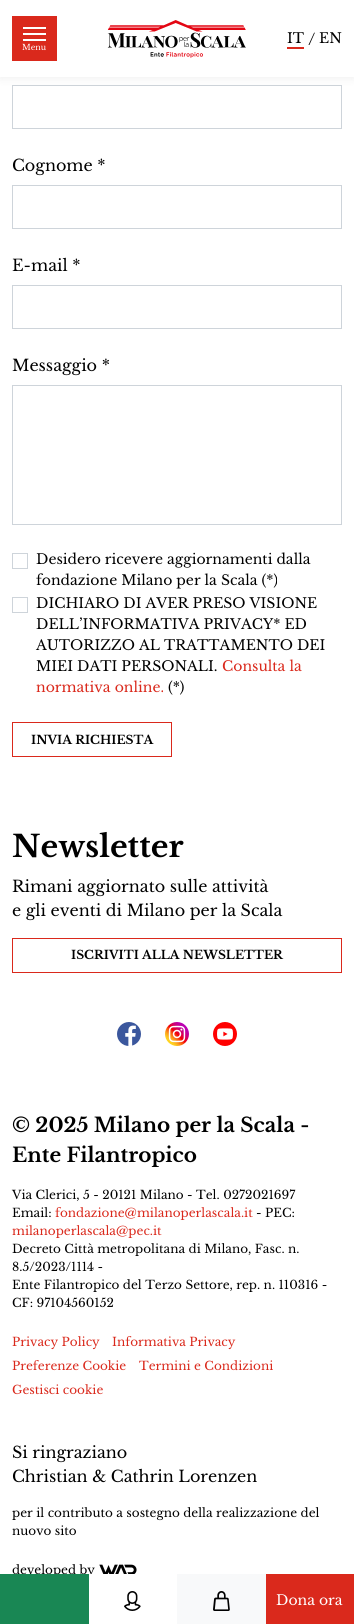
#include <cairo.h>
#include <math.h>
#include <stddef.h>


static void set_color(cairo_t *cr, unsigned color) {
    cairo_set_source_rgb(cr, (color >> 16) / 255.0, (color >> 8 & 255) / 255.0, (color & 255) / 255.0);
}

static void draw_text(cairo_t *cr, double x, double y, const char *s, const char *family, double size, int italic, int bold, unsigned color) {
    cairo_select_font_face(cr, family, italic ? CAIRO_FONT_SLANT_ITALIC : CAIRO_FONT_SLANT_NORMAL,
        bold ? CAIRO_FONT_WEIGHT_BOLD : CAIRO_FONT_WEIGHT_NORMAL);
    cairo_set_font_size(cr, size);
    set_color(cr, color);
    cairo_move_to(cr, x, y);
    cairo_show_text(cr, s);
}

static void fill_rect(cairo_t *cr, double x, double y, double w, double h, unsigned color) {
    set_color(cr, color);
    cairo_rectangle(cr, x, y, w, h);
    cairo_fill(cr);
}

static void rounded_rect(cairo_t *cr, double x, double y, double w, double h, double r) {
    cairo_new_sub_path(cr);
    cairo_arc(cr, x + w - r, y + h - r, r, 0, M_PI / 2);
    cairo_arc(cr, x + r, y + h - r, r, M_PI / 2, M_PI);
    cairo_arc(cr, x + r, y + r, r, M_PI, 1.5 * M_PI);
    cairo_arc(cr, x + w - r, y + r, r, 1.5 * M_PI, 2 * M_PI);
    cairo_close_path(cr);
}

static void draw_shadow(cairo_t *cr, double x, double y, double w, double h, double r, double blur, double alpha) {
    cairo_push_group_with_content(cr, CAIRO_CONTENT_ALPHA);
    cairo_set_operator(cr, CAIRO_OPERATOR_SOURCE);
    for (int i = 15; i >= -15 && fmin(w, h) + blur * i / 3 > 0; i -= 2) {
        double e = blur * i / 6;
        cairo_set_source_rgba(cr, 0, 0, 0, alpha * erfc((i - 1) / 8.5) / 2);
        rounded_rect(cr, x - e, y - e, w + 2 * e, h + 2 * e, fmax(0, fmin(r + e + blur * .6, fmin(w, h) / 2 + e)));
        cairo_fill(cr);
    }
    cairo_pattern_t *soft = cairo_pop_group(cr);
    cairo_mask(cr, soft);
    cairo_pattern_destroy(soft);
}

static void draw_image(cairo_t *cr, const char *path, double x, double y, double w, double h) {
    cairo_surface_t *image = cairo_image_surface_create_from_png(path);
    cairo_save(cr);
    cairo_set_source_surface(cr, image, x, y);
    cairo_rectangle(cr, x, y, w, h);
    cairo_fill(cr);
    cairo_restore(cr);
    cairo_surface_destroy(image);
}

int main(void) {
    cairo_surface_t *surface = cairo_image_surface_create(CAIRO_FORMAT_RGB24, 354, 1624);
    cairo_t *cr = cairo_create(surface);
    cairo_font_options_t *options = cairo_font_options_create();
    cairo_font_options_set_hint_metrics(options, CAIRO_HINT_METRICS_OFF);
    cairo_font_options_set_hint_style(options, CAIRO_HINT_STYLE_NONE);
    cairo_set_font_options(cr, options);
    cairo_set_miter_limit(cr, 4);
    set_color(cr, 0xFFFFFF);
    cairo_paint(cr);
    cairo_rectangle(cr, 12.5, 85.5, 329, 43);
    set_color(cr, 0xCED4DA);
    cairo_set_line_width(cr, 1);
    cairo_stroke(cr);
    set_color(cr, 0x000000);
    draw_shadow(cr, 0, 2, 354, 77, 0, 4.5, 0.06);
    fill_rect(cr, 0, 0, 354, 77, 0xFFFFFF);
    draw_image(cr, "assets/img1.png", 107, 20, 139, 38);
    draw_text(cr, 287, 43, "IT", "Libre Baskerville", 14, 0, 0, 0x000000);
    fill_rect(cr, 287, 47, 17, 2, 0xDA291C);
    draw_text(cr, 308, 45, "/", "Libre Baskerville", 16, 0, 0, 0x000000);
    draw_text(cr, 319, 43, "EN", "Libre Baskerville", 14, 0, 0, 0x000000);
    fill_rect(cr, 12, 16, 45, 45, 0xDA291C);
    fill_rect(cr, 23, 27, 23, 2, 0xFFFFFF);
    fill_rect(cr, 23, 33, 23, 2, 0xFFFFFF);
    fill_rect(cr, 23, 39, 23, 2, 0xFFFFFF);
    draw_text(cr, 22, 50, "Menu", "Libre Baskerville", 8, 0, 0, 0xFFFFFF);
    draw_text(cr, 12, 171, "Cognome *", "Libre Baskerville", 16, 0, 0, 0x000000);
    cairo_rectangle(cr, 12.5, 185.5, 329, 43);
    set_color(cr, 0xCED4DA);
    cairo_stroke(cr);
    draw_text(cr, 12, 271, "E-mail *", "Libre Baskerville", 16, 0, 0, 0x000000);
    cairo_rectangle(cr, 12.5, 285.5, 329, 43);
    set_color(cr, 0xCED4DA);
    cairo_stroke(cr);
    draw_text(cr, 12, 371, "Messaggio *", "Libre Baskerville", 16, 0, 0, 0x000000);
    cairo_rectangle(cr, 12.5, 385.5, 329, 139);
    set_color(cr, 0xCED4DA);
    cairo_stroke(cr);
    cairo_rectangle(cr, 12.5, 553.5, 15, 15);
    cairo_stroke(cr);
    draw_text(cr, 36, 564, "Desidero ricevere aggiornamenti dalla", "Libre Baskerville", 14, 0, 0, 0x000000);
    draw_text(cr, 36, 585, "fondazione Milano per la Scala (*)", "Libre Baskerville", 14, 0, 0, 0x000000);
    cairo_rectangle(cr, 12.5, 597.5, 15, 15);
    set_color(cr, 0xCED4DA);
    cairo_stroke(cr);
    draw_text(cr, 36, 608, "DICHIARO DI AVER PRESO VISIONE", "Libre Baskerville", 14, 0, 0, 0x000000);
    draw_text(cr, 36, 629, "DELL’INFORMATIVA PRIVACY* ED", "Libre Baskerville", 14, 0, 0, 0x000000);
    draw_text(cr, 36, 650, "AUTORIZZO AL TRATTAMENTO DEI", "Libre Baskerville", 14, 0, 0, 0x000000);
    draw_text(cr, 36, 671, "MIEI DATI PERSONALI.", "Libre Baskerville", 14, 0, 0, 0x000000);
    draw_text(cr, 222, 671, "Consulta la", "Libre Baskerville", 14, 0, 0, 0xDA291C);
    draw_text(cr, 36, 692, "normativa online.", "Libre Baskerville", 14, 0, 0, 0xDA291C);
    draw_text(cr, 168, 692, "(*)", "Libre Baskerville", 14, 0, 0, 0x000000);
    cairo_rectangle(cr, 12.5, 722.5, 159, 34);
    set_color(cr, 0xDA291C);
    cairo_stroke(cr);
    draw_text(cr, 31, 744, "INVIA RICHIESTA", "Libre Baskerville", 12, 0, 1, 0x000000);
    draw_text(cr, 12, 857, "Newsletter", "Libre Baskerville", 30.25, 0, 1, 0x000000);
    draw_text(cr, 12, 892, "Rimani aggiornato sulle attività", "Libre Baskerville", 16, 0, 0, 0x000000);
    draw_text(cr, 12, 916, "e gli eventi di Milano per la Scala", "Libre Baskerville", 16, 0, 0, 0x000000);
    cairo_rectangle(cr, 12.5, 938.5, 329, 34);
    set_color(cr, 0xDA291C);
    cairo_stroke(cr);
    draw_text(cr, 71, 959, "ISCRIVITI ALLA NEWSLETTER", "Libre Baskerville", 12, 0, 1, 0x000000);
    draw_image(cr, "assets/img2.png", 117, 1022, 24, 24);
    draw_image(cr, "assets/img3.png", 165, 1022, 24, 24);
    draw_image(cr, "assets/img4.png", 213, 1022, 24, 24);
    draw_text(cr, 12, 1132, "© 2025 Milano per la Scala -", "Libre Baskerville", 20, 0, 1, 0x000000);
    draw_text(cr, 12, 1162, "Ente Filantropico", "Libre Baskerville", 20, 0, 1, 0x000000);
    draw_text(cr, 12, 1199, "Via Clerici, 5 - 20121 Milano - Tel. 0272021697", "Libre Baskerville", 12, 0, 0, 0x000000);
    draw_text(cr, 12, 1217, "Email:", "Libre Baskerville", 12, 0, 0, 0x000000);
    draw_text(cr, 55, 1217, "fondazione@milanoperlascala.it", "Libre Baskerville", 12, 0, 0, 0xDA291C);
    draw_text(cr, 256, 1217, "- PEC:", "Libre Baskerville", 12, 0, 0, 0x000000);
    draw_text(cr, 12, 1235, "milanoperlascala@pec.it", "Libre Baskerville", 12, 0, 0, 0xDA291C);
    draw_text(cr, 12, 1253, "Decreto Città metropolitana di Milano, Fasc. n.", "Libre Baskerville", 12, 0, 0, 0x000000);
    draw_text(cr, 12, 1271, "8.5/2023/1114 -", "Libre Baskerville", 12, 0, 0, 0x000000);
    draw_text(cr, 12, 1289, "Ente Filantropico del Terzo Settore, rep. n. 110316 -", "Libre Baskerville", 12, 0, 0, 0x000000);
    draw_text(cr, 12, 1307, "CF: 97104560152", "Libre Baskerville", 12, 0, 0, 0x000000);
    draw_text(cr, 12, 1346, "Privacy Policy", "Libre Baskerville", 12, 0, 0, 0xDA291C);
    draw_text(cr, 112, 1346, "Informativa Privacy", "Libre Baskerville", 12, 0, 0, 0xDA291C);
    draw_text(cr, 12, 1370, "Preferenze Cookie", "Libre Baskerville", 12, 0, 0, 0xDA291C);
    draw_text(cr, 139, 1370, "Termini e Condizioni", "Libre Baskerville", 12, 0, 0, 0xDA291C);
    draw_text(cr, 12, 1394, "Gestisci cookie", "Libre Baskerville", 12, 0, 0, 0xDA291C);
    draw_text(cr, 12, 1458, "Si ringraziano", "Libre Baskerville", 16, 0, 0, 0x000000);
    draw_text(cr, 12, 1482, "Christian & Cathrin Lorenzen", "Libre Baskerville", 16, 0, 0, 0x000000);
    draw_text(cr, 12, 1517, "per il contributo a sostegno della realizzazione del", "Libre Baskerville", 12, 0, 0, 0x000000);
    draw_text(cr, 12, 1535, "nuovo sito", "Libre Baskerville", 12, 0, 0, 0x000000);
    draw_text(cr, 12, 1574, "developed by", "Libre Baskerville", 12, 0, 0, 0x000000);
    draw_image(cr, "assets/img5.png", 99, 1564, 38, 10);
    fill_rect(cr, 89, 1574, 3, 4, 0xFFFFFF);
    fill_rect(cr, 0, 1574, 89, 50, 0x198754);
    draw_image(cr, "assets/img6.png", 124, 1591, 17, 20);
    fill_rect(cr, 177, 1574, 89, 50, 0xF8F9FA);
    draw_image(cr, "assets/img7.png", 213, 1591, 17, 20);
    fill_rect(cr, 266, 1574, 88, 50, 0xDA291C);
    draw_text(cr, 276, 1605, "Dona ora", "Libre Baskerville", 14, 0, 0, 0xFFFFFF);
    cairo_surface_write_to_png(surface, "output.png");
    cairo_font_options_destroy(options);
    cairo_destroy(cr);
    cairo_surface_destroy(surface);
    return 0;
}
